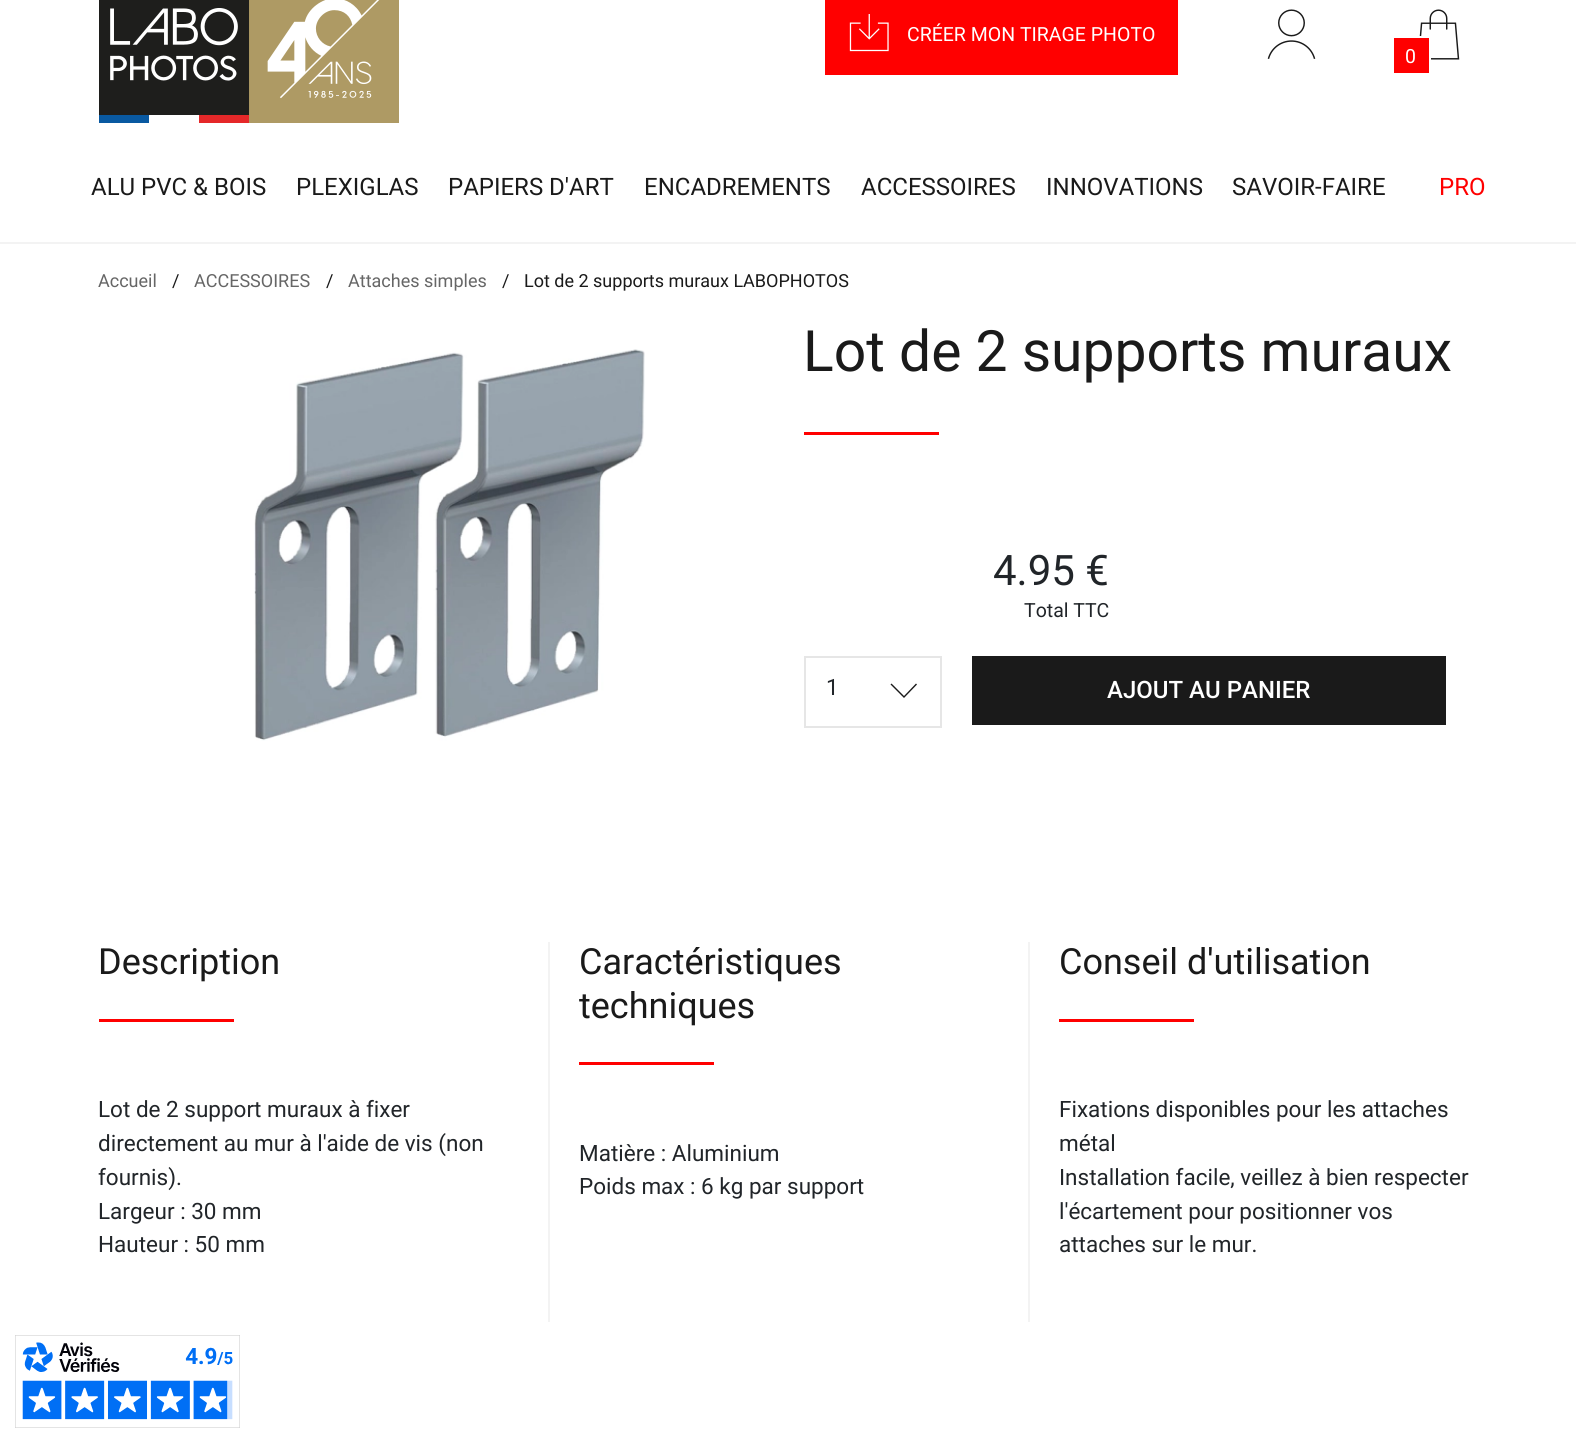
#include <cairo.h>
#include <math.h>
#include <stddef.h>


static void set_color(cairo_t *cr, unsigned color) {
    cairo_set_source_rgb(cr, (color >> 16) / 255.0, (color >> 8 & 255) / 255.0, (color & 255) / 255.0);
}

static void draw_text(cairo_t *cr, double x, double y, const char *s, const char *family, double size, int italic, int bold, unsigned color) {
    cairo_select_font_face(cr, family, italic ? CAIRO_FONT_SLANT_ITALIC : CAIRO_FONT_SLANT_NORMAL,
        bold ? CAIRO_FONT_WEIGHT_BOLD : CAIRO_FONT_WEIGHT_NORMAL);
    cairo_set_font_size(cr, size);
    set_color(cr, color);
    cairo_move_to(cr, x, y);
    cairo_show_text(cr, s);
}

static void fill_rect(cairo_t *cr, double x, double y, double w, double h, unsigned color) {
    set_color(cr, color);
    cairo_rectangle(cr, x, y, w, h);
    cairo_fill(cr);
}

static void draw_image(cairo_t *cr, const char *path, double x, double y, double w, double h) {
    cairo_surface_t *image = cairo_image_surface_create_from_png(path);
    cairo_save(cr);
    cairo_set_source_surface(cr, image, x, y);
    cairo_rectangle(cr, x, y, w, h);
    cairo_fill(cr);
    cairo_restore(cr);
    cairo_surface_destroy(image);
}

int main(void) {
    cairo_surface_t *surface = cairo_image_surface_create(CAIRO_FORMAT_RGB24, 1576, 1442);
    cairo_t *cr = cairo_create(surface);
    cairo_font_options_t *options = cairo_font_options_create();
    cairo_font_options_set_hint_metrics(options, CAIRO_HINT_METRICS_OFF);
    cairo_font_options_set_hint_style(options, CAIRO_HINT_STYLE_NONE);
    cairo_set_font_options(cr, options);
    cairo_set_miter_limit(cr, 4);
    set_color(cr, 0xFFFFFF);
    cairo_paint(cr);
    fill_rect(cr, 0, 242, 1576, 2, 0xF3F3F3);
    draw_image(cr, "assets/img1.png", 99, 0, 300, 123);
    fill_rect(cr, 825, 0, 353, 75, 0xFF0000);
    draw_image(cr, "assets/img2.png", 849, 14, 40, 38);
    draw_text(cr, 907, 41, "CRÉER MON TIRAGE PHOTO", "Roboto", 19.5, 0, 0, 0xFFFFFF);
    draw_image(cr, "assets/img3.png", 1267, 9, 49, 50);
    draw_image(cr, "assets/img4.png", 1419, 9, 41, 51);
    set_color(cr, 0xFF0000);
    cairo_rectangle(cr, 1393, 37, 37, 37);
    cairo_fill_preserve(cr);
    set_color(cr, 0xFFFFFF);
    cairo_stroke(cr);
    draw_text(cr, 1405, 63, "0", "Roboto", 19.5, 0, 0, 0xFFFFFF);
    draw_text(cr, 91, 195, "ALU PVC & BOIS", "Roboto", 24, 0, 0, 0x1A1A1A);
    draw_text(cr, 296, 195, "PLEXIGLAS", "Roboto", 24, 0, 0, 0x1A1A1A);
    draw_text(cr, 448, 195, "PAPIERS D'ART", "Roboto", 24, 0, 0, 0x1A1A1A);
    draw_text(cr, 644, 195, "ENCADREMENTS", "Roboto", 24, 0, 0, 0x1A1A1A);
    draw_text(cr, 861, 195, "ACCESSOIRES", "Roboto", 24, 0, 0, 0x1A1A1A);
    draw_text(cr, 1046, 195, "INNOVATIONS", "Roboto", 24, 0, 0, 0x1A1A1A);
    draw_text(cr, 1232, 195, "SAVOIR-FAIRE", "Roboto", 24, 0, 0, 0x1A1A1A);
    draw_text(cr, 1439, 195, "PRO", "Roboto", 24, 0, 0, 0xFF0000);
    draw_text(cr, 98, 287, "Accueil", "Roboto", 18, 0, 0, 0x666666);
    draw_text(cr, 172, 287, "/", "Roboto", 18, 0, 0, 0x1A1A1A);
    draw_text(cr, 194, 287, "ACCESSOIRES", "Roboto", 18, 0, 0, 0x666666);
    draw_text(cr, 326, 287, "/", "Roboto", 18, 0, 0, 0x1A1A1A);
    draw_text(cr, 348, 287, "Attaches simples", "Roboto", 18, 0, 0, 0x666666);
    draw_text(cr, 502, 287, "/", "Roboto", 18, 0, 0, 0x1A1A1A);
    draw_text(cr, 524, 287, "Lot de 2 supports muraux LABOPHOTOS", "Roboto", 18, 0, 0, 0x1A1A1A);
    draw_image(cr, "assets/img5.png", 254, 349, 391, 392);
    draw_text(cr, 803, 371, "Lot de 2 supports muraux", "Roboto", 57, 0, 0, 0x1A1A1A);
    fill_rect(cr, 804, 432, 135, 3, 0xFF0000);
    draw_text(cr, 993, 585, "4.95 €", "Roboto", 42, 0, 0, 0x212529);
    draw_text(cr, 1024, 617, "Total TTC", "Roboto", 19.5, 0, 0, 0x212529);
    cairo_rectangle(cr, 805, 657, 136, 70);
    set_color(cr, 0xE6E6E6);
    cairo_stroke(cr);
    draw_text(cr, 826, 695, "1", "Roboto", 22.5, 0, 0, 0x212529);
    set_color(cr, 0x1A1A1A);
    cairo_new_path(cr);
    cairo_move_to(cr, 904, 698);
    cairo_line_to(cr, 890.5, 684.5);
    cairo_line_to(cr, 891.5, 683.5);
    cairo_line_to(cr, 904, 696);
    cairo_line_to(cr, 916, 683.5);
    cairo_line_to(cr, 917, 684.5);
    cairo_close_path(cr);
    cairo_fill(cr);
    fill_rect(cr, 972, 656, 474, 69, 0x1A1A1A);
    draw_text(cr, 1107, 698, "AJOUT AU PANIER", "Roboto Medium", 24, 0, 0, 0xFFFFFF);
    draw_text(cr, 98, 974, "Description", "Roboto", 36, 0, 0, 0x1A1A1A);
    fill_rect(cr, 99, 1019, 135, 3, 0xFF0000);
    draw_text(cr, 98, 1117, "Lot de 2 support muraux à fixer", "Roboto", 22.5, 0, 0, 0x212529);
    draw_text(cr, 98, 1151, "directement au mur à l'aide de vis (non", "Roboto", 22.5, 0, 0, 0x212529);
    draw_text(cr, 98, 1185, "fournis).", "Roboto", 22.5, 0, 0, 0x212529);
    draw_text(cr, 98, 1219, "Largeur : 30 mm", "Roboto", 22.5, 0, 0, 0x212529);
    draw_text(cr, 98, 1252, "Hauteur : 50 mm", "Roboto", 22.5, 0, 0, 0x212529);
    fill_rect(cr, 548, 942, 2, 380, 0xF3F3F3);
    draw_text(cr, 579, 974, "Caractéristiques", "Roboto", 36, 0, 0, 0x1A1A1A);
    draw_text(cr, 579, 1018, "techniques", "Roboto", 36, 0, 0, 0x1A1A1A);
    fill_rect(cr, 579, 1062, 135, 3, 0xFF0000);
    draw_text(cr, 579, 1161, "Matière : Aluminium", "Roboto", 22.5, 0, 0, 0x212529);
    draw_text(cr, 579, 1194, "Poids max : 6 kg par support", "Roboto", 22.5, 0, 0, 0x212529);
    fill_rect(cr, 1028, 942, 2, 380, 0xF3F3F3);
    draw_text(cr, 1059, 974, "Conseil d'utilisation", "Roboto", 36, 0, 0, 0x1A1A1A);
    fill_rect(cr, 1059, 1019, 135, 3, 0xFF0000);
    draw_text(cr, 1059, 1117, "Fixations disponibles pour les attaches", "Roboto", 22.5, 0, 0, 0x212529);
    draw_text(cr, 1059, 1151, "métal", "Roboto", 22.5, 0, 0, 0x212529);
    draw_text(cr, 1059, 1185, "Installation facile, veillez à bien respecter", "Roboto", 22.5, 0, 0, 0x212529);
    draw_text(cr, 1059, 1219, "l'écartement pour positionner vos", "Roboto", 22.5, 0, 0, 0x212529);
    draw_text(cr, 1059, 1252, "attaches sur le mur.", "Roboto", 22.5, 0, 0, 0x212529);
    draw_image(cr, "assets/img6.png", 15, 1335, 225, 93);
    cairo_surface_write_to_png(surface, "output.png");
    cairo_font_options_destroy(options);
    cairo_destroy(cr);
    cairo_surface_destroy(surface);
    return 0;
}
